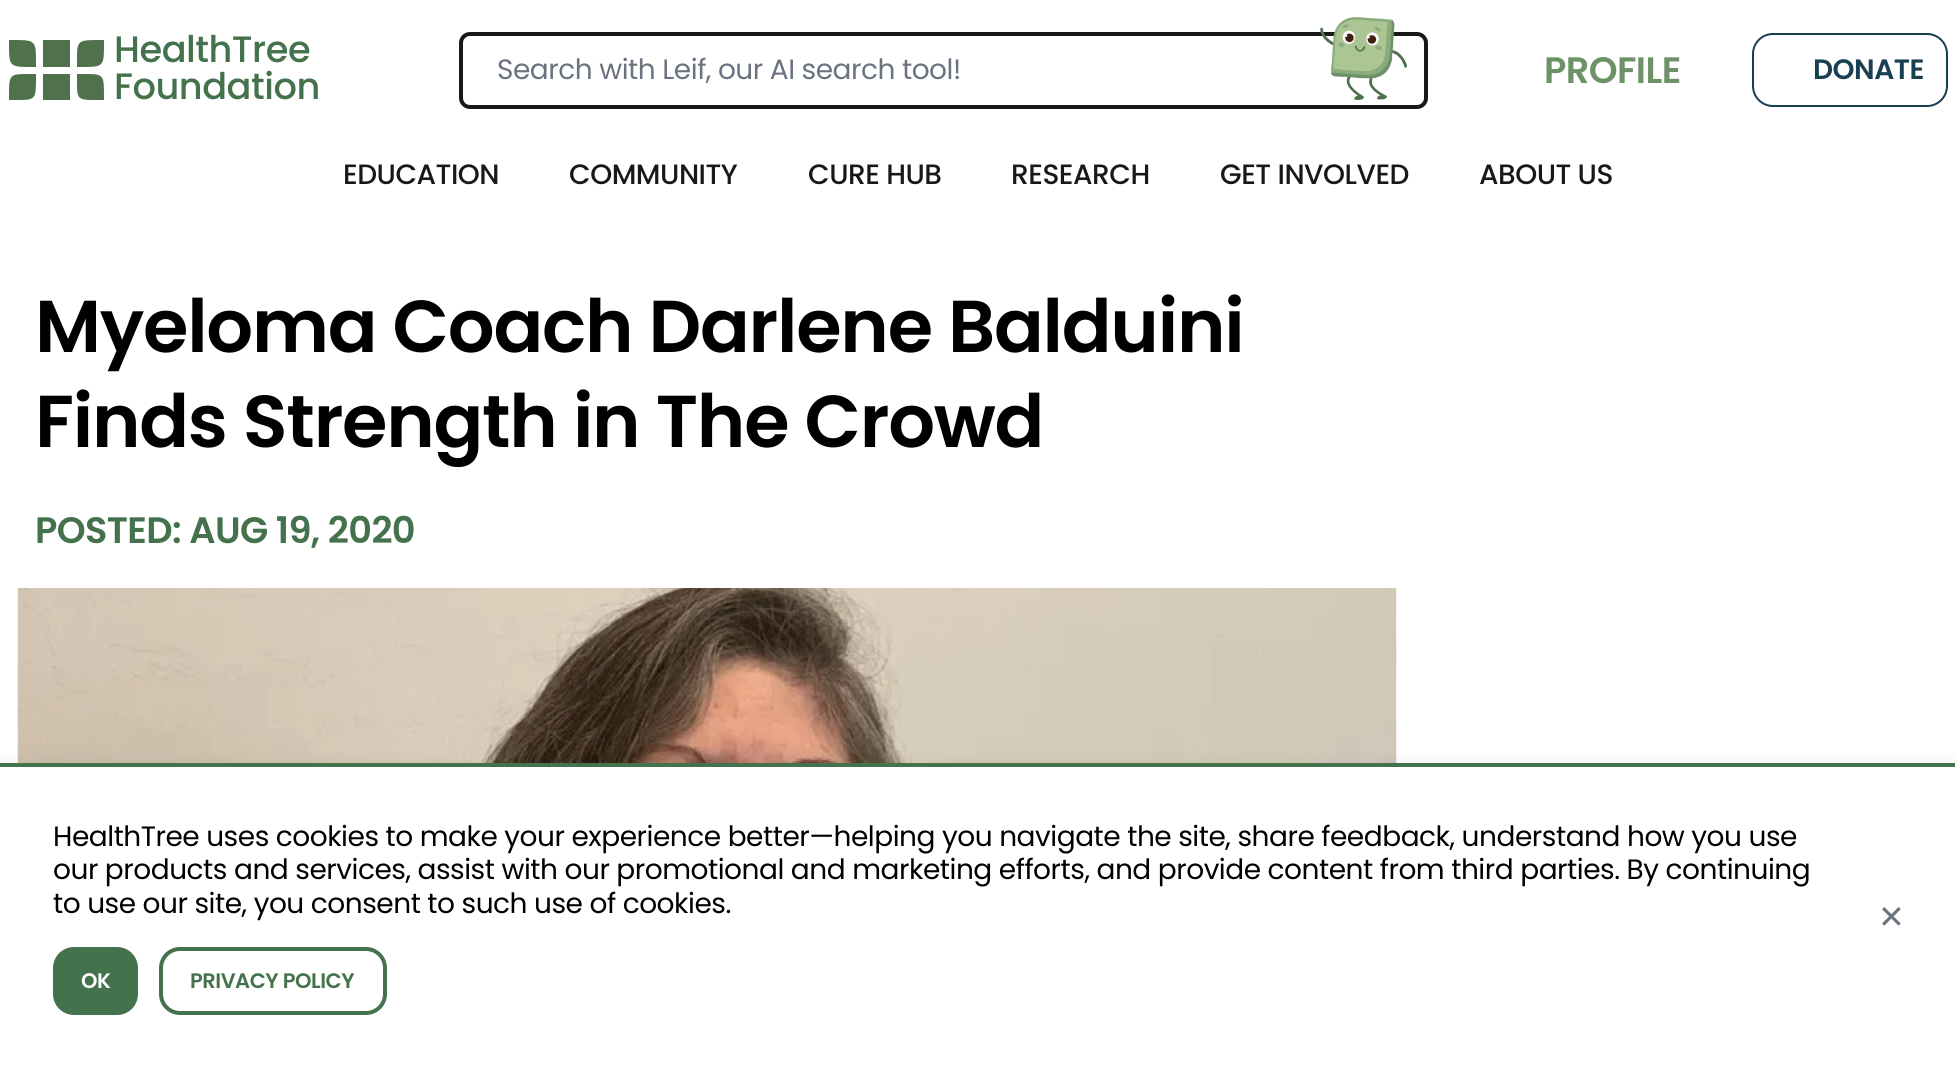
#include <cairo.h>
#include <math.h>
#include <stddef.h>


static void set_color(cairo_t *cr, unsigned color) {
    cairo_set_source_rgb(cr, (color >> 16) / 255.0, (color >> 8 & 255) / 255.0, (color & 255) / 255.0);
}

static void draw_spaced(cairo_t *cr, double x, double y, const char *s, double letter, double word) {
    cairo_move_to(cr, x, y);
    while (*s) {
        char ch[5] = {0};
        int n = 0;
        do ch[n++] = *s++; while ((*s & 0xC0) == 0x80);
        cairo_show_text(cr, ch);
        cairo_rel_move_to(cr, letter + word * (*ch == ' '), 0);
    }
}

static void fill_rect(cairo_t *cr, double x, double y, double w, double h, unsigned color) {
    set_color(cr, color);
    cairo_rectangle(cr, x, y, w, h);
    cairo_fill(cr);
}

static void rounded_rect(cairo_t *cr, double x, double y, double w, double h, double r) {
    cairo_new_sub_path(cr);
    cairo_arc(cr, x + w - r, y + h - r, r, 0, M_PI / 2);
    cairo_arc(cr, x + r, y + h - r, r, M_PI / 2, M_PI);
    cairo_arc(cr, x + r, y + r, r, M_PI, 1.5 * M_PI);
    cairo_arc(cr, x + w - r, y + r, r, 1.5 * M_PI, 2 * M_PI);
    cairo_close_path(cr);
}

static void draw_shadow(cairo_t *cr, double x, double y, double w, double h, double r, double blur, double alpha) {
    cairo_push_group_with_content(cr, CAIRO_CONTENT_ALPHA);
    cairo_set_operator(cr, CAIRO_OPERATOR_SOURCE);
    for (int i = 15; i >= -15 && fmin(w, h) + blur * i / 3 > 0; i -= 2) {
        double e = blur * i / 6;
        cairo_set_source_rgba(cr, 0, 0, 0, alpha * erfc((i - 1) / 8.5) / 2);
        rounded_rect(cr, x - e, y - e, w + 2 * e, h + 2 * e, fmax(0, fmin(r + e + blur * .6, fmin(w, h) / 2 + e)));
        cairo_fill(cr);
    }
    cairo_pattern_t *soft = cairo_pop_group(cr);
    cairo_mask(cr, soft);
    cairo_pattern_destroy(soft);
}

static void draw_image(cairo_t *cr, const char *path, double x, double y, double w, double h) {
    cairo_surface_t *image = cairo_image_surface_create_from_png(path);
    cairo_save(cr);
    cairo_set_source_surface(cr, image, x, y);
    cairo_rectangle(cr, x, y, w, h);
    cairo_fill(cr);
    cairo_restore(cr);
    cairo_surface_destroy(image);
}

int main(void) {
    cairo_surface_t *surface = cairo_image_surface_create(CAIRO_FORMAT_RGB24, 1955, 1067);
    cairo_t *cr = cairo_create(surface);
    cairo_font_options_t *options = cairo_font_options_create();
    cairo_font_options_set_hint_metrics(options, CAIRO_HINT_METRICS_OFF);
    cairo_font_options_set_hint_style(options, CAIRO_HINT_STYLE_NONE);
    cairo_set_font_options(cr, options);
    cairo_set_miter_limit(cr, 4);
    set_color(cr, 0xFFFFFF);
    cairo_paint(cr);
    set_color(cr, 0x4F724D);
    cairo_new_path(cr);
    cairo_move_to(cr, 70, 40);
    cairo_line_to(cr, 43, 40);
    cairo_line_to(cr, 43, 67);
    cairo_line_to(cr, 70, 67);
    cairo_close_path(cr);
    cairo_move_to(cr, 70, 74);
    cairo_line_to(cr, 43, 74);
    cairo_line_to(cr, 43, 100);
    cairo_line_to(cr, 70, 100);
    cairo_close_path(cr);
    cairo_move_to(cr, 36, 67);
    cairo_curve_to(cr, 36, 39, 37, 40, 9, 40);
    cairo_curve_to(cr, 9, 68, 8, 67, 36, 67);
    cairo_close_path(cr);
    cairo_move_to(cr, 77, 67);
    cairo_curve_to(cr, 77, 39, 75, 40, 104, 40);
    cairo_curve_to(cr, 104, 68, 105, 67, 77, 67);
    cairo_close_path(cr);
    cairo_move_to(cr, 36, 74);
    cairo_curve_to(cr, 36, 102, 37, 100, 9, 100);
    cairo_curve_to(cr, 9, 72, 8, 74, 36, 74);
    cairo_close_path(cr);
    cairo_move_to(cr, 77, 74);
    cairo_curve_to(cr, 77, 102, 75, 100, 104, 100);
    cairo_curve_to(cr, 104, 72, 105, 74, 77, 74);
    cairo_close_path(cr);
    cairo_fill(cr);
    cairo_select_font_face(cr, "Poppins Medium", CAIRO_FONT_SLANT_NORMAL, CAIRO_FONT_WEIGHT_NORMAL);
    cairo_set_font_size(cr, 36.75);
    set_color(cr, 0x44724D);
    draw_spaced(cr, 114, 62, "HealthTree", -0.48, 0);
    draw_spaced(cr, 114, 99, "Foundation", -0.48, 0);
    rounded_rect(cr, 461, 34, 965, 73, 9);
    set_color(cr, 0x181818);
    cairo_set_line_width(cr, 4);
    cairo_stroke(cr);
    cairo_select_font_face(cr, "Poppins", CAIRO_FONT_SLANT_NORMAL, CAIRO_FONT_WEIGHT_NORMAL);
    cairo_set_font_size(cr, 28);
    set_color(cr, 0x6B7280);
    draw_spaced(cr, 497, 79, "Search with Leif, our AI search tool!", -0.48, 0);
    draw_image(cr, "assets/img1.png", 1320, 17, 87, 83);
    cairo_select_font_face(cr, "Poppins SemiBold", CAIRO_FONT_SLANT_NORMAL, CAIRO_FONT_WEIGHT_NORMAL);
    cairo_set_font_size(cr, 36.75);
    set_color(cr, 0x6E9268);
    draw_spaced(cr, 1544, 83, "PROFILE", -0.6, 0);
    rounded_rect(cr, 1753, 34, 194, 72, 20);
    set_color(cr, 0x193F52);
    cairo_set_line_width(cr, 2);
    cairo_stroke(cr);
    cairo_set_font_size(cr, 28);
    draw_spaced(cr, 1813, 79, "DONATE", -0.48, 0);
    cairo_select_font_face(cr, "Poppins Medium", CAIRO_FONT_SLANT_NORMAL, CAIRO_FONT_WEIGHT_NORMAL);
    set_color(cr, 0x181818);
    draw_spaced(cr, 343, 184, "EDUCATION", -0.48, 0);
    draw_spaced(cr, 569, 184, "COMMUNITY", -0.48, 0);
    draw_spaced(cr, 808, 184, "CURE HUB", -0.48, 0);
    draw_spaced(cr, 1011, 184, "RESEARCH", -0.48, 0);
    draw_spaced(cr, 1220, 184, "GET INVOLVED", -0.48, 0);
    draw_spaced(cr, 1479, 184, "ABOUT US", -0.48, 0);
    cairo_select_font_face(cr, "Poppins SemiBold", CAIRO_FONT_SLANT_NORMAL, CAIRO_FONT_WEIGHT_NORMAL);
    cairo_set_font_size(cr, 73.5);
    set_color(cr, 0x000000);
    draw_spaced(cr, 35, 352, "Myeloma Coach Darlene Balduini", -1.25, 0);
    draw_spaced(cr, 35, 447, "Finds Strength in The Crowd", -1.25, 0);
    cairo_set_font_size(cr, 36.75);
    set_color(cr, 0x44724D);
    draw_spaced(cr, 35, 543, "POSTED: AUG 19, 2020", -0.6, 0);
    draw_image(cr, "assets/img2.png", 17, 588, 1380, 175);
    set_color(cr, 0x000000);
    draw_shadow(cr, 0, 767, 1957, 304, 0, 9, 0.1);
    fill_rect(cr, 0, 767, 1955, 300, 0xFFFFFF);
    fill_rect(cr, 0, 763, 1955, 4, 0x44724D);
    cairo_select_font_face(cr, "Poppins", CAIRO_FONT_SLANT_NORMAL, CAIRO_FONT_WEIGHT_NORMAL);
    cairo_set_font_size(cr, 28);
    set_color(cr, 0x000000);
    draw_spaced(cr, 53, 846, "HealthTree uses cookies to make your experience better—helping you navigate the site, share feedback, understand how you use", -0.48, 0);
    draw_spaced(cr, 53, 879, "our products and services, assist with our promotional and marketing efforts, and provide content from third parties. By continuing", -0.48, 0);
    draw_spaced(cr, 53, 913, "to use our site, you consent to such use of cookies.", -0.48, 0);
    set_color(cr, 0x44724D);
    rounded_rect(cr, 53, 947, 85, 68, 21);
    cairo_fill(cr);
    cairo_select_font_face(cr, "Poppins SemiBold", CAIRO_FONT_SLANT_NORMAL, CAIRO_FONT_WEIGHT_NORMAL);
    cairo_set_font_size(cr, 21);
    set_color(cr, 0xFFFFFF);
    draw_spaced(cr, 81, 988, "OK", -0.48, 0);
    rounded_rect(cr, 161, 949, 224, 64, 19);
    set_color(cr, 0x44724D);
    cairo_set_line_width(cr, 4);
    cairo_stroke(cr);
    draw_spaced(cr, 190, 988, "PRIVACY POLICY", -0.48, 0);
    cairo_select_font_face(cr, "DejaVu Sans", CAIRO_FONT_SLANT_NORMAL, CAIRO_FONT_WEIGHT_NORMAL);
    cairo_set_font_size(cr, 32);
    set_color(cr, 0x6B7280);
    draw_spaced(cr, 1878, 928, "✕", -0.48, 0);
    cairo_surface_write_to_png(surface, "output.png");
    cairo_font_options_destroy(options);
    cairo_destroy(cr);
    cairo_surface_destroy(surface);
    return 0;
}
